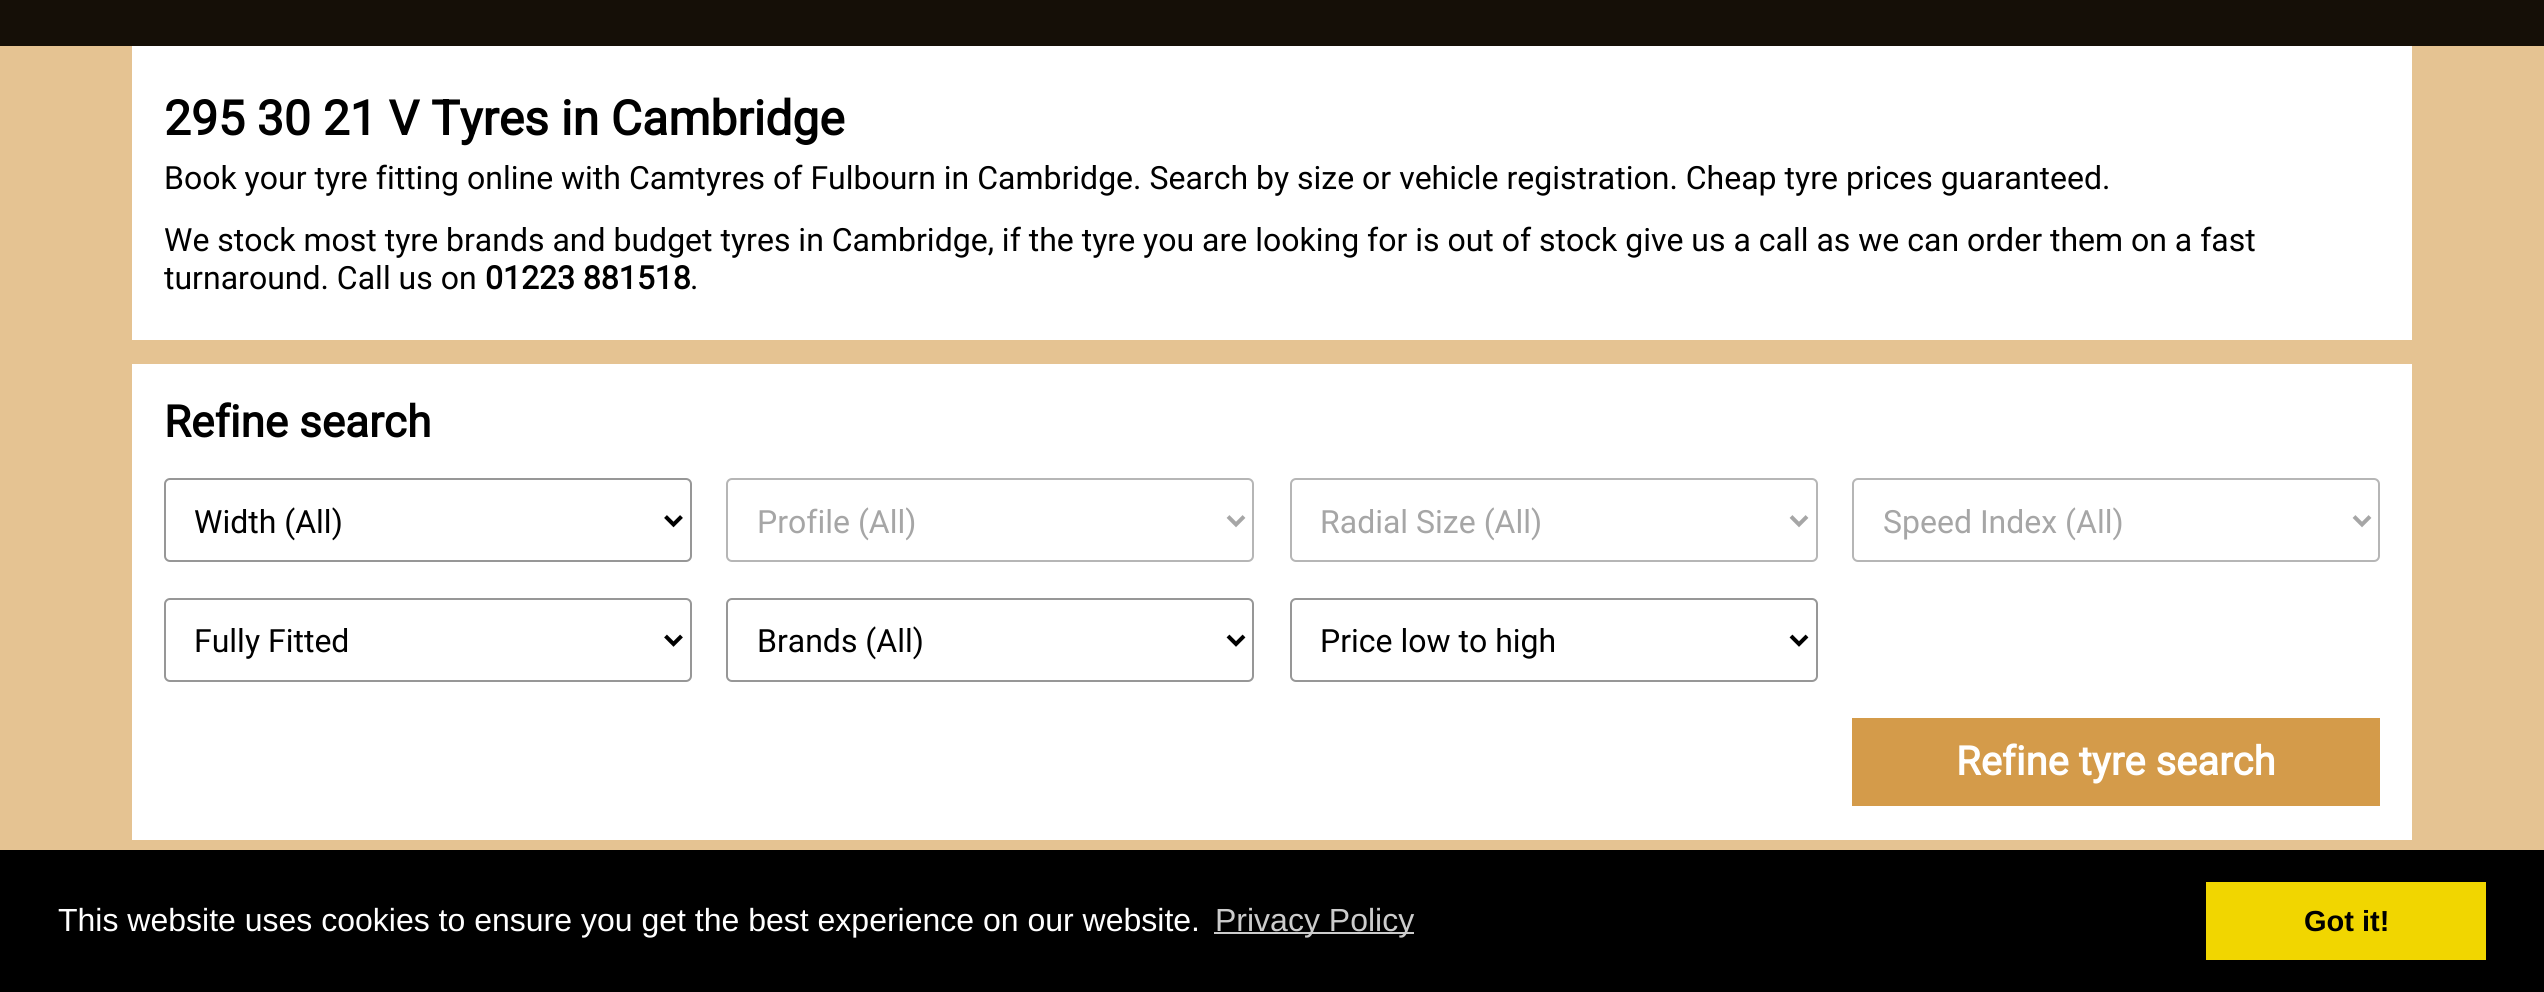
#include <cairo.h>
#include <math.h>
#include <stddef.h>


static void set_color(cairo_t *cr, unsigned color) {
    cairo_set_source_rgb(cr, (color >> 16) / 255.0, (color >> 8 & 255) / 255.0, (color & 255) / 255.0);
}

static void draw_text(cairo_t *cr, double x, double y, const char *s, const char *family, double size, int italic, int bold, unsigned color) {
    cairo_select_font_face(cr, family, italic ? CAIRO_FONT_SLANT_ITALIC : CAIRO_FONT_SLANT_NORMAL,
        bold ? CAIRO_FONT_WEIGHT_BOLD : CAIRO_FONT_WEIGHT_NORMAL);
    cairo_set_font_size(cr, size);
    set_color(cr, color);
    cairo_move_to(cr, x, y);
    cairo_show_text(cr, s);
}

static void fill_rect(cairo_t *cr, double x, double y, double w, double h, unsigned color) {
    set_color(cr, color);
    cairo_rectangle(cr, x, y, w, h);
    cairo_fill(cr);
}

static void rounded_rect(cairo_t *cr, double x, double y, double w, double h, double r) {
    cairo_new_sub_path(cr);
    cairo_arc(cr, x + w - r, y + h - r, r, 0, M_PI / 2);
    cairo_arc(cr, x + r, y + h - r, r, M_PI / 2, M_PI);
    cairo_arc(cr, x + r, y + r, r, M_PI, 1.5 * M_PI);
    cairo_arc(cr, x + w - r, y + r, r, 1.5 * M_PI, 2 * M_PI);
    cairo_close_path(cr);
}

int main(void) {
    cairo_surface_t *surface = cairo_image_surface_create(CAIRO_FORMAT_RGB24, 2544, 992);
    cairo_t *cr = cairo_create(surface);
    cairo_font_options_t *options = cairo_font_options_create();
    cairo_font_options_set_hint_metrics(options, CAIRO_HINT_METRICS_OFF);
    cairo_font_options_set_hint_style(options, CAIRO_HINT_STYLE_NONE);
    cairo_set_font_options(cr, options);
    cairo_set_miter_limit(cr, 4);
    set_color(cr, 0xE5C392);
    cairo_paint(cr);
    fill_rect(cr, 0, 0, 2544, 46, 0x150F07);
    fill_rect(cr, 132, 46, 2280, 294, 0xFFFFFF);
    draw_text(cr, 164, 135, "295 30 21 V Tyres in Cambridge", "Roboto", 48, 0, 1, 0x000000);
    draw_text(cr, 164, 189, "Book your tyre fitting online with Camtyres of Fulbourn in Cambridge. Search by size or vehicle registration. Cheap tyre prices guaranteed.", "Roboto", 32, 0, 0, 0x000000);
    draw_text(cr, 164, 251, "We stock most tyre brands and budget tyres in Cambridge, if the tyre you are looking for is out of stock give us a call as we can order them on a fast", "Roboto", 32, 0, 0, 0x000000);
    draw_text(cr, 164, 289, "turnaround. Call us on", "Roboto", 32, 0, 0, 0x000000);
    draw_text(cr, 485, 289, "01223 881518", "Roboto", 32, 0, 1, 0x000000);
    draw_text(cr, 690, 289, ".", "Roboto", 32, 0, 0, 0x000000);
    fill_rect(cr, 132, 364, 2280, 476, 0xFFFFFF);
    draw_text(cr, 164, 437, "Refine search", "Roboto", 44, 0, 1, 0x000000);
    rounded_rect(cr, 165, 479, 526, 82, 5);
    set_color(cr, 0x979797);
    cairo_stroke(cr);
    cairo_new_path(cr);
    cairo_move_to(cr, 665.5, 516.5);
    cairo_line_to(cr, 673.5, 524.5);
    cairo_line_to(cr, 681.5, 516.5);
    set_color(cr, 0x000000);
    cairo_set_line_width(cr, 4);
    cairo_stroke(cr);
    draw_text(cr, 194, 533, "Width (All)", "Roboto", 32, 0, 0, 0x000000);
    rounded_rect(cr, 727, 479, 526, 82, 5);
    set_color(cr, 0xB6B6B6);
    cairo_set_line_width(cr, 2);
    cairo_stroke(cr);
    cairo_new_path(cr);
    cairo_move_to(cr, 1228, 516.5);
    cairo_line_to(cr, 1236, 524.5);
    cairo_line_to(cr, 1244, 516.5);
    set_color(cr, 0xA6A6A6);
    cairo_set_line_width(cr, 4);
    cairo_stroke(cr);
    draw_text(cr, 757, 533, "Profile (All)", "Roboto", 32, 0, 0, 0xA6A6A6);
    rounded_rect(cr, 1291, 479, 526, 82, 5);
    set_color(cr, 0xB6B6B6);
    cairo_set_line_width(cr, 2);
    cairo_stroke(cr);
    cairo_new_path(cr);
    cairo_move_to(cr, 1791, 516.5);
    cairo_line_to(cr, 1799, 524.5);
    cairo_line_to(cr, 1807, 516.5);
    set_color(cr, 0xA6A6A6);
    cairo_set_line_width(cr, 4);
    cairo_stroke(cr);
    draw_text(cr, 1320, 533, "Radial Size (All)", "Roboto", 32, 0, 0, 0xA6A6A6);
    rounded_rect(cr, 1853, 479, 526, 82, 5);
    set_color(cr, 0xB6B6B6);
    cairo_set_line_width(cr, 2);
    cairo_stroke(cr);
    cairo_new_path(cr);
    cairo_move_to(cr, 2354, 516.5);
    cairo_line_to(cr, 2362, 524.5);
    cairo_line_to(cr, 2370, 516.5);
    set_color(cr, 0xA6A6A6);
    cairo_set_line_width(cr, 4);
    cairo_stroke(cr);
    draw_text(cr, 1883, 533, "Speed Index (All)", "Roboto", 32, 0, 0, 0xA6A6A6);
    rounded_rect(cr, 165, 599, 526, 82, 5);
    set_color(cr, 0x979797);
    cairo_set_line_width(cr, 2);
    cairo_stroke(cr);
    cairo_new_path(cr);
    cairo_move_to(cr, 665.5, 636);
    cairo_line_to(cr, 673.5, 644);
    cairo_line_to(cr, 681.5, 636);
    set_color(cr, 0x000000);
    cairo_set_line_width(cr, 4);
    cairo_stroke(cr);
    draw_text(cr, 194, 652, "Fully Fitted", "Roboto", 32, 0, 0, 0x000000);
    rounded_rect(cr, 727, 599, 526, 82, 5);
    set_color(cr, 0x979797);
    cairo_set_line_width(cr, 2);
    cairo_stroke(cr);
    cairo_new_path(cr);
    cairo_move_to(cr, 1228, 636);
    cairo_line_to(cr, 1236, 644);
    cairo_line_to(cr, 1244, 636);
    set_color(cr, 0x000000);
    cairo_set_line_width(cr, 4);
    cairo_stroke(cr);
    draw_text(cr, 757, 652, "Brands (All)", "Roboto", 32, 0, 0, 0x000000);
    rounded_rect(cr, 1291, 599, 526, 82, 5);
    set_color(cr, 0x979797);
    cairo_set_line_width(cr, 2);
    cairo_stroke(cr);
    cairo_new_path(cr);
    cairo_move_to(cr, 1791, 636);
    cairo_line_to(cr, 1799, 644);
    cairo_line_to(cr, 1807, 636);
    set_color(cr, 0x000000);
    cairo_set_line_width(cr, 4);
    cairo_stroke(cr);
    draw_text(cr, 1320, 652, "Price low to high", "Roboto", 32, 0, 0, 0x000000);
    fill_rect(cr, 1852, 718, 528, 88, 0xD49B4A);
    draw_text(cr, 1956, 775, "Refine tyre search", "Roboto", 40, 0, 1, 0xFFFFFF);
    fill_rect(cr, 0, 850, 2544, 142, 0x000000);
    draw_text(cr, 58, 931, "This website uses cookies to ensure you get the best experience on our website.", "Liberation Sans", 32, 0, 0, 0xFFFFFF);
    fill_rect(cr, 1214, 932, 200, 2, 0xCCCCCC);
    draw_text(cr, 1215, 931, "Privacy Policy", "Liberation Sans", 32, 0, 0, 0xCCCCCC);
    fill_rect(cr, 2206, 882, 280, 78, 0xF1D600);
    draw_text(cr, 2304, 931, "Got it!", "Liberation Sans", 29, 0, 1, 0x000000);
    cairo_surface_write_to_png(surface, "output.png");
    cairo_font_options_destroy(options);
    cairo_destroy(cr);
    cairo_surface_destroy(surface);
    return 0;
}
